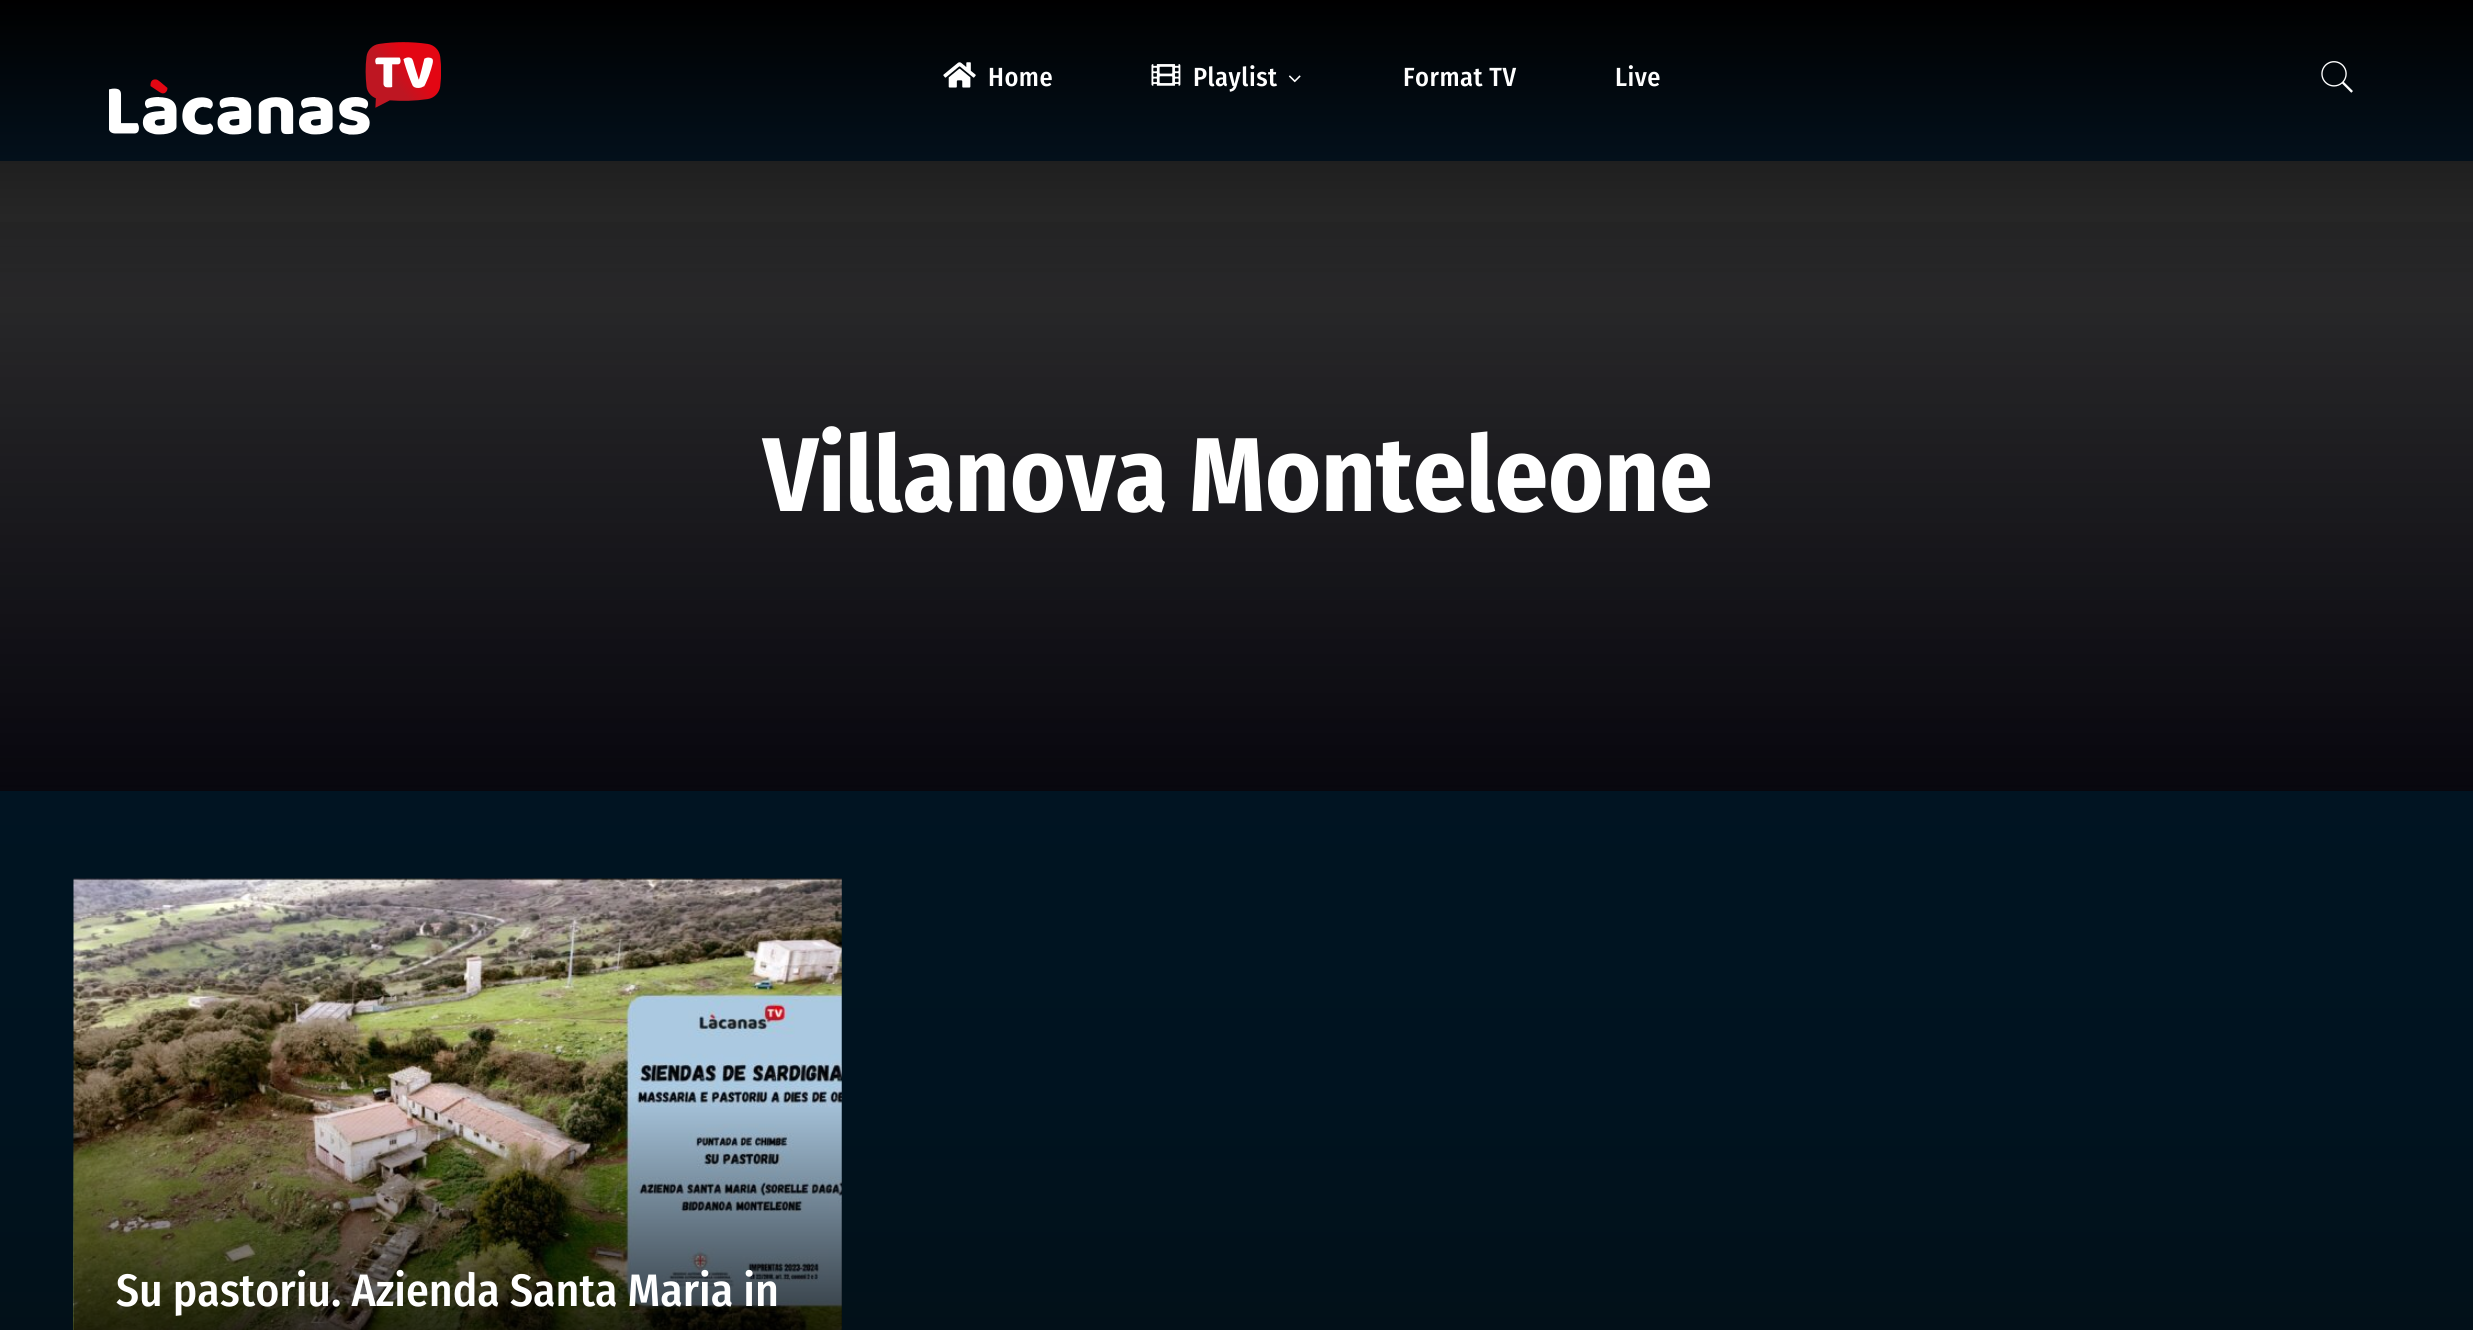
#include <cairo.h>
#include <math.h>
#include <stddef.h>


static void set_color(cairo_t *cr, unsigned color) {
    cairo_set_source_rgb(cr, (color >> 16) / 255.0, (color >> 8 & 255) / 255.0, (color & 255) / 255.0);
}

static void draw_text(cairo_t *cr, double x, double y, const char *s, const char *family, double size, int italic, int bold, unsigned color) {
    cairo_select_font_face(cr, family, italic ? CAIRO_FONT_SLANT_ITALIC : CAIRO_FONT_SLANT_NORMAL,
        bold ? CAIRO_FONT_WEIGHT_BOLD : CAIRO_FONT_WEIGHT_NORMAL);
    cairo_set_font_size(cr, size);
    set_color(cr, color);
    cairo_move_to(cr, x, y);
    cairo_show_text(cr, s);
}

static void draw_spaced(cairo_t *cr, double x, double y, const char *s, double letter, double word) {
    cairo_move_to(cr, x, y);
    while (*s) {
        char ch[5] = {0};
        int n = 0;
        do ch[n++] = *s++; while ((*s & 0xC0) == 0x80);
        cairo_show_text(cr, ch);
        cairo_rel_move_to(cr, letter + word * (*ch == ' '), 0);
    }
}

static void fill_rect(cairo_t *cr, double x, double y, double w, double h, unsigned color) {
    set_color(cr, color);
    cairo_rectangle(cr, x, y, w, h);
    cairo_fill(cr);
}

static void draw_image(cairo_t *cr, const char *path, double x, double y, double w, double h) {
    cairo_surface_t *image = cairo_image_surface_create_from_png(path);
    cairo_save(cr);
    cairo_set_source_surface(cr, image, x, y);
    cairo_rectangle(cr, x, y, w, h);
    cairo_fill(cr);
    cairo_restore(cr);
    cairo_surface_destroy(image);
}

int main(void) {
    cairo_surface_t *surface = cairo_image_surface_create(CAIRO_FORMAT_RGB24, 2473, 1330);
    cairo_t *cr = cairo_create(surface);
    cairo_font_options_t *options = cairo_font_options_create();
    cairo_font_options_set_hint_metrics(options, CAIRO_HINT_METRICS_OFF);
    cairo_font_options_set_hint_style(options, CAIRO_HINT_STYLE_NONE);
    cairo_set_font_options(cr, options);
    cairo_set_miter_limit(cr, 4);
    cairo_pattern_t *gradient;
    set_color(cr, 0xFFFFFF);
    cairo_paint(cr);
    gradient = cairo_pattern_create_linear(1237, 0, 1237, 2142);
    cairo_pattern_add_color_stop_rgba(gradient, 0, 0.008, 0.094, 0.153, 1);
    cairo_pattern_add_color_stop_rgba(gradient, 0.51, 0, 0.075, 0.125, 1);
    cairo_pattern_add_color_stop_rgba(gradient, 1, 0.031, 0.027, 0, 1);
    cairo_set_source(cr, gradient);
    cairo_pattern_destroy(gradient);
    cairo_rectangle(cr, 0, 791, 2473, 539);
    cairo_fill(cr);
    gradient = cairo_pattern_create_linear(1237, 0, 1237, 161);
    cairo_pattern_add_color_stop_rgba(gradient, 0, 0, 0, 0, 1);
    cairo_pattern_add_color_stop_rgba(gradient, 1, 0.012, 0.063, 0.106, 1);
    cairo_set_source(cr, gradient);
    cairo_pattern_destroy(gradient);
    cairo_rectangle(cr, 0, 0, 2473, 161);
    cairo_fill(cr);
    draw_image(cr, "assets/img1.png", 109, 42, 332, 93);
    draw_image(cr, "assets/img2.png", 943, 62, 33, 26);
    cairo_select_font_face(cr, "Fira Sans Condensed Medium", CAIRO_FONT_SLANT_NORMAL, CAIRO_FONT_WEIGHT_NORMAL);
    cairo_set_font_size(cr, 26.25);
    set_color(cr, 0xFFFFFF);
    draw_spaced(cr, 988, 86, "Home", 0.5, 0);
    draw_image(cr, "assets/img3.png", 1151, 64, 30, 22);
    draw_spaced(cr, 1193, 86, "Playlist", 0.5, 0);
    draw_image(cr, "assets/img4.png", 1288, 75, 13, 8);
    draw_spaced(cr, 1403, 86, "Format TV", 0.5, 0);
    draw_spaced(cr, 1615, 86, "Live", 0.5, 0);
    draw_image(cr, "assets/img5.png", 2321, 61, 32, 32);
    gradient = cairo_pattern_create_linear(1237, 161, 1237, 301);
    cairo_pattern_add_color_stop_rgba(gradient, 0, 0.122, 0.122, 0.122, 1);
    cairo_pattern_add_color_stop_rgba(gradient, 1, 0.188, 0.188, 0.188, 1);
    cairo_set_source(cr, gradient);
    cairo_pattern_destroy(gradient);
    cairo_rectangle(cr, 0, 161, 2473, 140);
    cairo_fill(cr);
    fill_rect(cr, 0, 301, 2473, 486, 0x303030);
    gradient = cairo_pattern_create_linear(1237, 161, 1237, 791);
    cairo_pattern_add_color_stop_rgba(gradient, 0, 0.031, 0.027, 0.055, 0);
    cairo_pattern_add_color_stop_rgba(gradient, 1, 0.031, 0.027, 0.055, 1);
    cairo_set_source(cr, gradient);
    cairo_pattern_destroy(gradient);
    cairo_rectangle(cr, 0, 222, 2473, 569);
    cairo_fill(cr);
    draw_text(cr, 763, 511, "Villanova Monteleone", "Fira Sans Condensed", 105, 0, 1, 0xFFFFFF);
    draw_image(cr, "assets/img6.png", 73, 878, 769, 452);
    gradient = cairo_pattern_create_linear(458, 879, 458, 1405);
    cairo_pattern_add_color_stop_rgba(gradient, 0, 0, 0, 0, 0);
    cairo_pattern_add_color_stop_rgba(gradient, 0.4, 0, 0, 0, 0);
    cairo_pattern_add_color_stop_rgba(gradient, 1, 0, 0, 0, 0.95);
    cairo_set_source(cr, gradient);
    cairo_pattern_destroy(gradient);
    cairo_rectangle(cr, 74, 1097, 768, 233);
    cairo_fill(cr);
    draw_text(cr, 116, 1306, "Su pastoriu. Azienda Santa Maria in", "Fira Sans Condensed Medium", 45.5, 0, 0, 0xFFFFFF);
    cairo_surface_write_to_png(surface, "output.png");
    cairo_font_options_destroy(options);
    cairo_destroy(cr);
    cairo_surface_destroy(surface);
    return 0;
}
